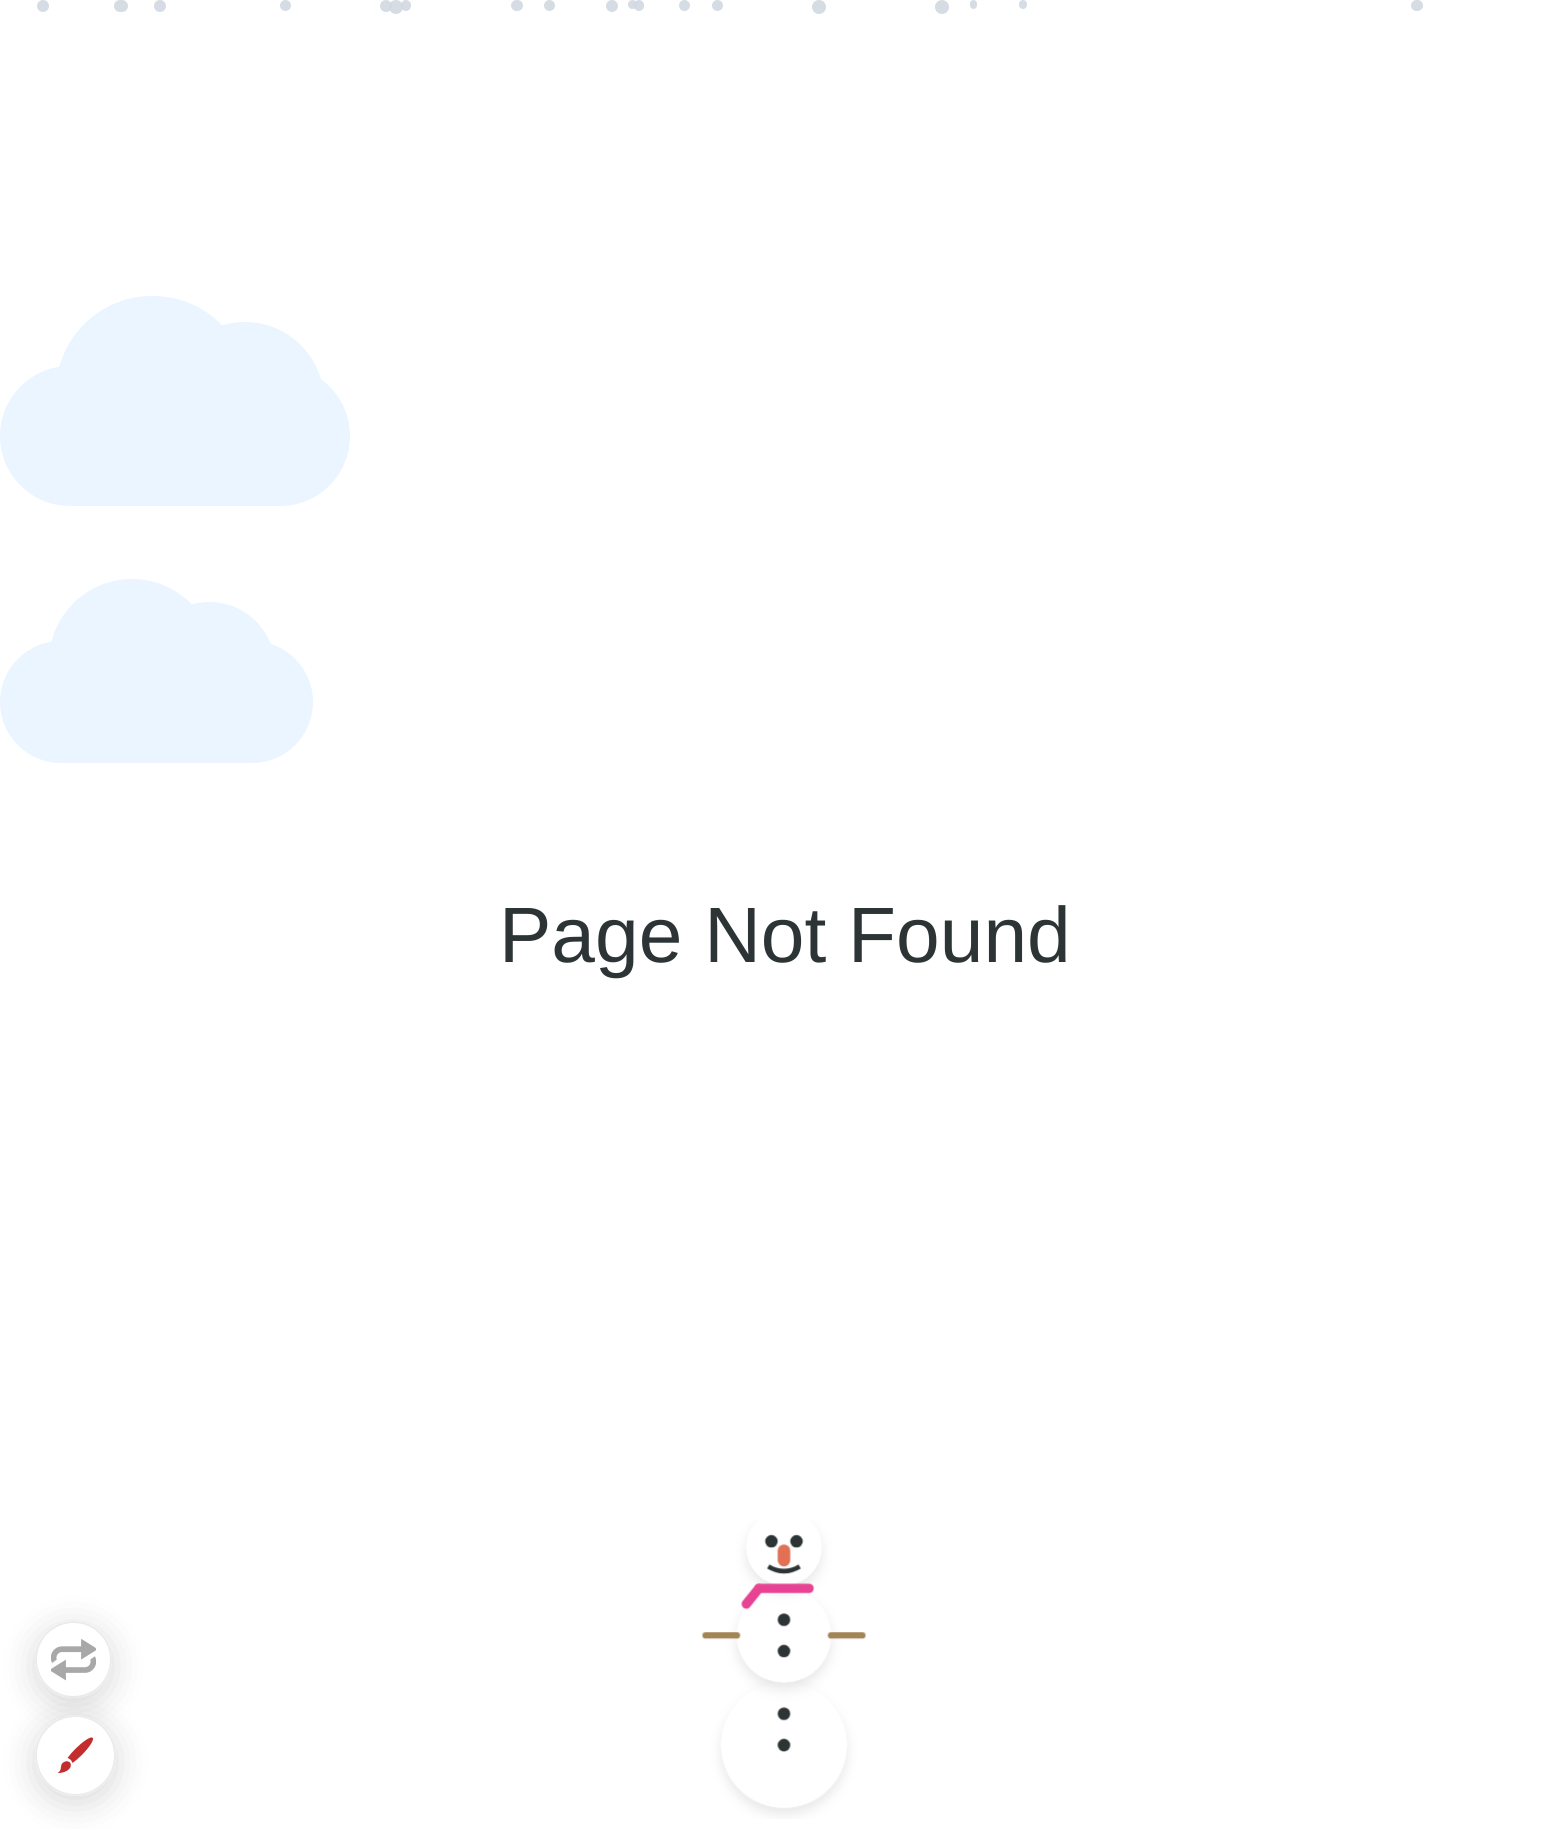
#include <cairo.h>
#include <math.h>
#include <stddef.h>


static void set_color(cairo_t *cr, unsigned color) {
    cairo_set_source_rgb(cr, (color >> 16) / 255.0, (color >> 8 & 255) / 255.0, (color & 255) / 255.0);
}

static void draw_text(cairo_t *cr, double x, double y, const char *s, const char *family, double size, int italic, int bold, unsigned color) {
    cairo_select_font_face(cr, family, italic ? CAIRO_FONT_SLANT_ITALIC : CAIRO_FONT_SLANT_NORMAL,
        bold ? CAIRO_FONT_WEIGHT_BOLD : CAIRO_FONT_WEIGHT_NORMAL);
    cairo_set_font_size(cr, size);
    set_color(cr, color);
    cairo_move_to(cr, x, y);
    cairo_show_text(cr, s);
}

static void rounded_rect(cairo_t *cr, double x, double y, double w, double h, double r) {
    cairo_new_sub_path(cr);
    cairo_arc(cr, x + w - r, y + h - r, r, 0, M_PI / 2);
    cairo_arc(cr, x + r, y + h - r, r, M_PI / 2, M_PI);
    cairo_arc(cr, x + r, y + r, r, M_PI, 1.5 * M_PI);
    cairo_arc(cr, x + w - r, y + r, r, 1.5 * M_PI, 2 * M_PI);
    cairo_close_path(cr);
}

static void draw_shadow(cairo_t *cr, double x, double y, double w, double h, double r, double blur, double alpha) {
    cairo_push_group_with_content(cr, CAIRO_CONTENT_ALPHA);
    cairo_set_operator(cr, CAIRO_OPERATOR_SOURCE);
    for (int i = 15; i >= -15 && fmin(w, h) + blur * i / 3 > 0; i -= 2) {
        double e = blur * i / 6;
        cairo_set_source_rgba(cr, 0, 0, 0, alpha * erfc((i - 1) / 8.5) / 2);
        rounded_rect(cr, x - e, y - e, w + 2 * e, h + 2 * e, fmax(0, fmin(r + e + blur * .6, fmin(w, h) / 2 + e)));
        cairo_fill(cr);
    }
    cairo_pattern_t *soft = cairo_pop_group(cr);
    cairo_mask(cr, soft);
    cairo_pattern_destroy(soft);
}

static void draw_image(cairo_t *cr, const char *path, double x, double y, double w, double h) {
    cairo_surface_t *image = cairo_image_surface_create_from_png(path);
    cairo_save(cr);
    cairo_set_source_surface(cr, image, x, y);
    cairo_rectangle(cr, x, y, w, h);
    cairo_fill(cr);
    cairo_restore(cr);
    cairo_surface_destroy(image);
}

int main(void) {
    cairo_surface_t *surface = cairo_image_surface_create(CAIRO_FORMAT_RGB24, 1567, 1829);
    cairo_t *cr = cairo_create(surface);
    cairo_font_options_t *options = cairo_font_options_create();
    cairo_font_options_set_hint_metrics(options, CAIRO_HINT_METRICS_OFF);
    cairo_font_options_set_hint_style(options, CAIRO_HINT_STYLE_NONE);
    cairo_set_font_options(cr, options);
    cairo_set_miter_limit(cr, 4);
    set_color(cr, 0xFFFFFF);
    cairo_paint(cr);
    set_color(cr, 0xD6DCE3);
    cairo_arc(cr, 43, 6, 6, 0, 2 * M_PI);
    cairo_fill(cr);
    rounded_rect(cr, 114, 0, 14, 12, 6);
    cairo_fill(cr);
    cairo_arc(cr, 160, 6, 6, 0, 2 * M_PI);
    cairo_fill(cr);
    cairo_arc(cr, 285.5, 5.5, 5.5, 0, 2 * M_PI);
    cairo_fill(cr);
    cairo_arc(cr, 386, 6, 6, 0, 2 * M_PI);
    cairo_fill(cr);
    rounded_rect(cr, 401, 0, 10, 11, 5);
    cairo_fill(cr);
    cairo_set_source_rgba(cr, 0.82, 0.847, 0.878, 0.9);
    cairo_arc(cr, 396, 7, 7, 0, 2 * M_PI);
    cairo_fill(cr);
    set_color(cr, 0xD6DCE3);
    rounded_rect(cr, 511, 0, 12, 11, 5.5);
    cairo_fill(cr);
    cairo_arc(cr, 549.5, 5.5, 5.5, 0, 2 * M_PI);
    cairo_fill(cr);
    cairo_arc(cr, 612, 6, 6, 0, 2 * M_PI);
    cairo_fill(cr);
    rounded_rect(cr, 634, 0, 10, 11, 5);
    cairo_fill(cr);
    cairo_set_source_rgba(cr, 0.82, 0.847, 0.878, 0.9);
    cairo_arc(cr, 632.5, 4.5, 4.5, 0, 2 * M_PI);
    cairo_fill(cr);
    set_color(cr, 0xD6DCE3);
    cairo_arc(cr, 684.5, 5.5, 5.5, 0, 2 * M_PI);
    cairo_fill(cr);
    cairo_arc(cr, 717.5, 5.5, 5.5, 0, 2 * M_PI);
    cairo_fill(cr);
    cairo_arc(cr, 819, 7, 7, 0, 2 * M_PI);
    cairo_fill(cr);
    cairo_arc(cr, 942, 7, 7, 0, 2 * M_PI);
    cairo_fill(cr);
    rounded_rect(cr, 970, 0, 7, 9, 3.5);
    cairo_fill(cr);
    rounded_rect(cr, 1019, 0, 8, 9, 4);
    cairo_fill(cr);
    rounded_rect(cr, 1411, 0, 12, 11, 5.5);
    cairo_fill(cr);
    set_color(cr, 0xEAF5FF);
    rounded_rect(cr, 0, 366, 350, 140, 70);
    cairo_fill(cr);
    rounded_rect(cr, 56, 296, 193, 192, 96);
    cairo_fill(cr);
    cairo_arc(cr, 245, 401, 79, 0, 2 * M_PI);
    cairo_fill(cr);
    rounded_rect(cr, 0, 641, 313, 122, 61);
    cairo_fill(cr);
    rounded_rect(cr, 49, 579, 166, 167, 83);
    cairo_fill(cr);
    cairo_arc(cr, 209.5, 667.5, 65.5, 0, 2 * M_PI);
    cairo_fill(cr);
    draw_image(cr, "assets/img1.png", 701, 1520, 165, 299);
    draw_text(cr, 499, 962, "Page Not Found", "Liberation Sans", 78.5, 0, 0, 0x2D3436);
    cairo_save(cr);
    cairo_set_fill_rule(cr, CAIRO_FILL_RULE_EVEN_ODD);
    cairo_new_path(cr);
    cairo_move_to(cr, 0, 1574);
    cairo_line_to(cr, 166, 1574);
    cairo_line_to(cr, 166, 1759);
    cairo_line_to(cr, 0, 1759);
    cairo_close_path(cr);
    cairo_move_to(cr, 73.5, 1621);
    cairo_curve_to(cr, 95, 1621, 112, 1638, 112, 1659.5);
    cairo_curve_to(cr, 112, 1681, 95, 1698, 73.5, 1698);
    cairo_curve_to(cr, 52, 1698, 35, 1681, 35, 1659.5);
    cairo_curve_to(cr, 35, 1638, 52, 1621, 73.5, 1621);
    cairo_close_path(cr);
    cairo_clip(cr);
    set_color(cr, 0x000000);
    draw_shadow(cr, 35, 1628, 77, 77, 38.5, 17.5, 0.15);
    cairo_restore(cr);
    cairo_set_source_rgba(cr, 1, 1, 1, 0.95);
    cairo_arc(cr, 73.5, 1659.5, 38.5, 0, 2 * M_PI);
    cairo_fill(cr);
    cairo_arc(cr, 73.5, 1659.5, 37.5, 0, 2 * M_PI);
    cairo_set_source_rgba(cr, 0, 0, 0, 0.08);
    cairo_stroke(cr);
    draw_image(cr, "assets/img2.png", 51, 1639, 45, 42);
    cairo_save(cr);
    cairo_set_fill_rule(cr, CAIRO_FILL_RULE_EVEN_ODD);
    cairo_new_path(cr);
    cairo_move_to(cr, 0, 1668);
    cairo_line_to(cr, 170, 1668);
    cairo_line_to(cr, 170, 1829);
    cairo_line_to(cr, 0, 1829);
    cairo_close_path(cr);
    cairo_move_to(cr, 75.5, 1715);
    cairo_curve_to(cr, 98, 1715, 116, 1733, 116, 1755.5);
    cairo_curve_to(cr, 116, 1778, 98, 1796, 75.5, 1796);
    cairo_curve_to(cr, 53, 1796, 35, 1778, 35, 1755.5);
    cairo_curve_to(cr, 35, 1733, 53, 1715, 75.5, 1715);
    cairo_close_path(cr);
    cairo_clip(cr);
    set_color(cr, 0x000000);
    draw_shadow(cr, 35, 1722, 81, 81, 40.5, 17.5, 0.15);
    cairo_restore(cr);
    cairo_set_source_rgba(cr, 1, 1, 1, 0.95);
    cairo_arc(cr, 75.5, 1755.5, 40.5, 0, 2 * M_PI);
    cairo_fill(cr);
    cairo_arc(cr, 75.5, 1755.5, 39.5, 0, 2 * M_PI);
    cairo_set_source_rgba(cr, 0, 0, 0, 0.08);
    cairo_stroke(cr);
    draw_image(cr, "assets/img3.png", 57, 1737, 37, 37);
    cairo_surface_write_to_png(surface, "output.png");
    cairo_font_options_destroy(options);
    cairo_destroy(cr);
    cairo_surface_destroy(surface);
    return 0;
}
